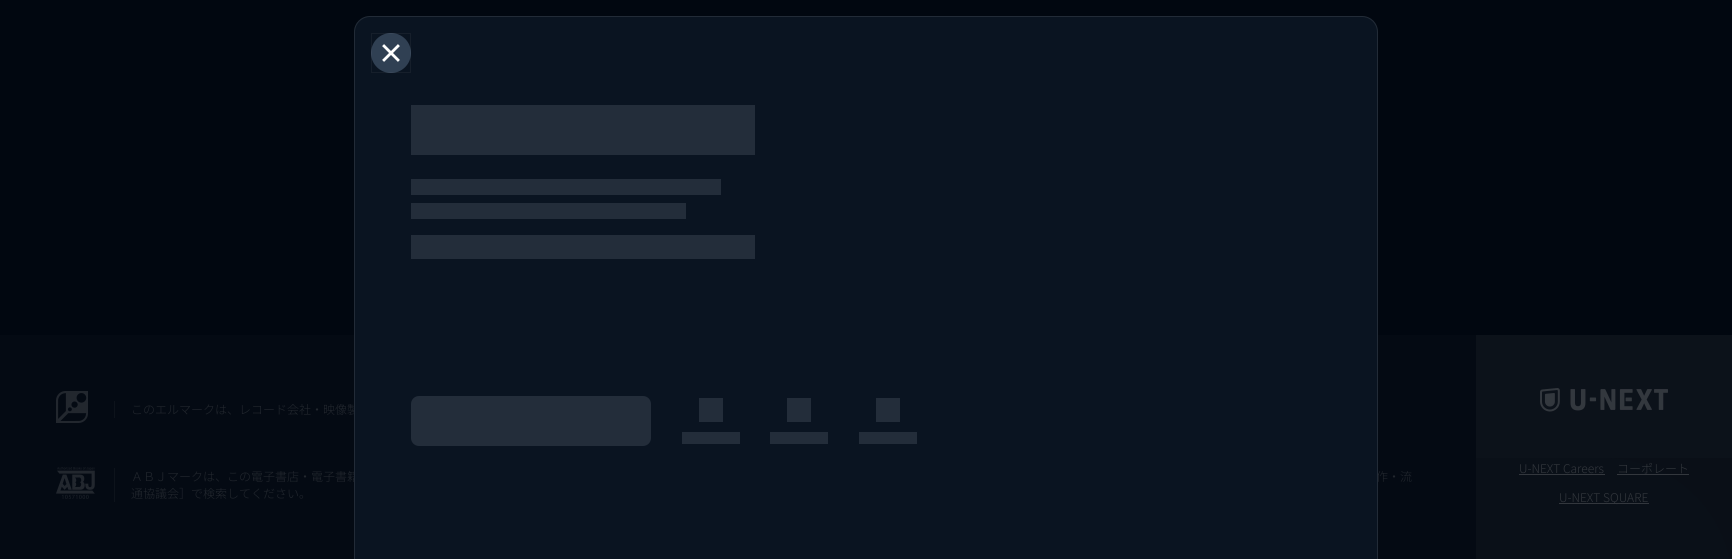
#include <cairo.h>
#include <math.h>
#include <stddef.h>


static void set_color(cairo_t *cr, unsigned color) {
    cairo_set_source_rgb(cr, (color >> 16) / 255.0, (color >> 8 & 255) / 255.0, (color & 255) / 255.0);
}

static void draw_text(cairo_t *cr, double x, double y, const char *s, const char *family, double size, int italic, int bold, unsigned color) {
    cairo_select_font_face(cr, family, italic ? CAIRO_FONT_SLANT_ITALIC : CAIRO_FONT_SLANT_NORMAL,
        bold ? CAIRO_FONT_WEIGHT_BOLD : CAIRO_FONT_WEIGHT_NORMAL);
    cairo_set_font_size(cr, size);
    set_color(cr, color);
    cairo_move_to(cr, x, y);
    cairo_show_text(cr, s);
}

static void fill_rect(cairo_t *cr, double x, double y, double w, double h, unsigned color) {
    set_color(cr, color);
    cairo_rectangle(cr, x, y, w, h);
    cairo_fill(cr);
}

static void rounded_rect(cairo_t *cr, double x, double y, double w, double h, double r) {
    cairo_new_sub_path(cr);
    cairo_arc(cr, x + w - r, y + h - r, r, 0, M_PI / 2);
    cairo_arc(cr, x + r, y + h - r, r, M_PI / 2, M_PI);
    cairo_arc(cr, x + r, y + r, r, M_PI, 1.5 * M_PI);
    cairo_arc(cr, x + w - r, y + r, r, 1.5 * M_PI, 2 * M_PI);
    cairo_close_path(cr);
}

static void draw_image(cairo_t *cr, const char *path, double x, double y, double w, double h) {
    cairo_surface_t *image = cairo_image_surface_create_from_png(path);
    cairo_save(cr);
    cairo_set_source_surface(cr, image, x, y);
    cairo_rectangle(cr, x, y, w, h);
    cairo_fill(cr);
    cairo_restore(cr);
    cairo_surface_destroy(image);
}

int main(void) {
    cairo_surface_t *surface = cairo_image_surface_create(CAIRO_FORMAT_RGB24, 1732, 559);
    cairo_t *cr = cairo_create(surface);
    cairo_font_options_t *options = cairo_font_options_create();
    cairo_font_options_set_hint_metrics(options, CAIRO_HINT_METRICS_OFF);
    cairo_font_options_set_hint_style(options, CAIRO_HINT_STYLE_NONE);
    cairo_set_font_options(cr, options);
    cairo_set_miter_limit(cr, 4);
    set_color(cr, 0x010710);
    cairo_paint(cr);
    fill_rect(cr, 0, 335, 1476, 224, 0x040A13);
    draw_text(cr, 131, 414, "このエルマークは、レコード会社・映像製", "Noto Sans JP Light", 12, 0, 0, 0x22272E);
    draw_text(cr, 131, 481, "ＡＢＪマークは、この電子書店・電子書籍", "Noto Sans JP Light", 12, 0, 0, 0x22272E);
    draw_text(cr, 1376, 481, "作・流", "Noto Sans JP Light", 12, 0, 0, 0x22272E);
    set_color(cr, 0x0A1421);
    cairo_new_path(cr);
    cairo_move_to(cr, 370, 16);
    cairo_line_to(cr, 1362, 16);
    cairo_curve_to(cr, 1371, 16, 1378, 23, 1378, 32);
    cairo_line_to(cr, 1378, 559);
    cairo_line_to(cr, 354, 559);
    cairo_line_to(cr, 354, 32);
    cairo_curve_to(cr, 354, 23, 361, 16, 370, 16);
    cairo_close_path(cr);
    cairo_fill(cr);
    rounded_rect(cr, 354.5, 16.5, 1023, 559, 15.5);
    cairo_set_source_rgba(cr, 1, 1, 1, 0.1);
    cairo_set_line_width(cr, 1);
    cairo_stroke(cr);
    set_color(cr, 0x304053);
    cairo_arc(cr, 391, 53, 20, 0, 2 * M_PI);
    cairo_fill(cr);
    cairo_rectangle(cr, 371.5, 33.5, 39, 39);
    cairo_set_source_rgba(cr, 1, 1, 1, 0.05);
    cairo_stroke(cr);
    draw_image(cr, "assets/img1.png", 382, 44, 18, 18);
    fill_rect(cr, 411, 105, 344, 50, 0x232D3A);
    fill_rect(cr, 411, 179, 310, 16, 0x232D3A);
    fill_rect(cr, 411, 203, 275, 16, 0x232D3A);
    fill_rect(cr, 411, 235, 344, 24, 0x232D3A);
    rounded_rect(cr, 411, 396, 240, 50, 8);
    cairo_fill(cr);
    fill_rect(cr, 699, 398, 24, 24, 0x232D3A);
    fill_rect(cr, 682, 432, 58, 12, 0x232D3A);
    fill_rect(cr, 787, 398, 24, 24, 0x232D3A);
    fill_rect(cr, 770, 432, 58, 12, 0x232D3A);
    fill_rect(cr, 876, 398, 24, 24, 0x232D3A);
    fill_rect(cr, 859, 432, 58, 12, 0x232D3A);
    draw_image(cr, "assets/img2.png", 56, 391, 32, 32);
    fill_rect(cr, 114, 401, 1, 17, 0x0D131B);
    draw_image(cr, "assets/img3.png", 56, 467, 39, 32);
    fill_rect(cr, 114, 468, 1, 34, 0x0D131B);
    draw_text(cr, 131, 498, "通協議会］で検索してください。", "Noto Sans JP Light", 12, 0, 0, 0x22272E);
    fill_rect(cr, 1605, 458, 127, 101, 0x0A0F17);
    set_color(cr, 0x0A1018);
    cairo_set_fill_rule(cr, CAIRO_FILL_RULE_EVEN_ODD);
    cairo_new_path(cr);
    cairo_move_to(cr, 1732, 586);
    cairo_curve_to(cr, 1732, 515, 1675, 458, 1604, 458);
    cairo_line_to(cr, 1476, 458);
    cairo_line_to(cr, 1476, 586);
    cairo_close_path(cr);
    cairo_fill(cr);
    fill_rect(cr, 1476, 335, 256, 123, 0x0C121A);
    draw_image(cr, "assets/img4.png", 1540, 388, 128, 24);
    draw_text(cr, 1519, 473, "U-NEXT Careers", "Noto Sans JP Light", 12, 0, 0, 0x33373D);
    fill_rect(cr, 1519, 474, 86, 1, 0x33373D);
    draw_text(cr, 1617, 473, "コーポレート", "Noto Sans JP Light", 12, 0, 0, 0x33373D);
    cairo_set_source_rgba(cr, 0.255, 0.267, 0.29, 0.75);
    cairo_rectangle(cr, 1617, 474, 72, 1);
    cairo_fill(cr);
    fill_rect(cr, 1559, 503, 90, 1, 0x33373D);
    draw_text(cr, 1559, 502, "U-NEXT SQUARE", "Noto Sans JP Light", 12, 0, 0, 0x33373D);
    cairo_surface_write_to_png(surface, "output.png");
    cairo_font_options_destroy(options);
    cairo_destroy(cr);
    cairo_surface_destroy(surface);
    return 0;
}
